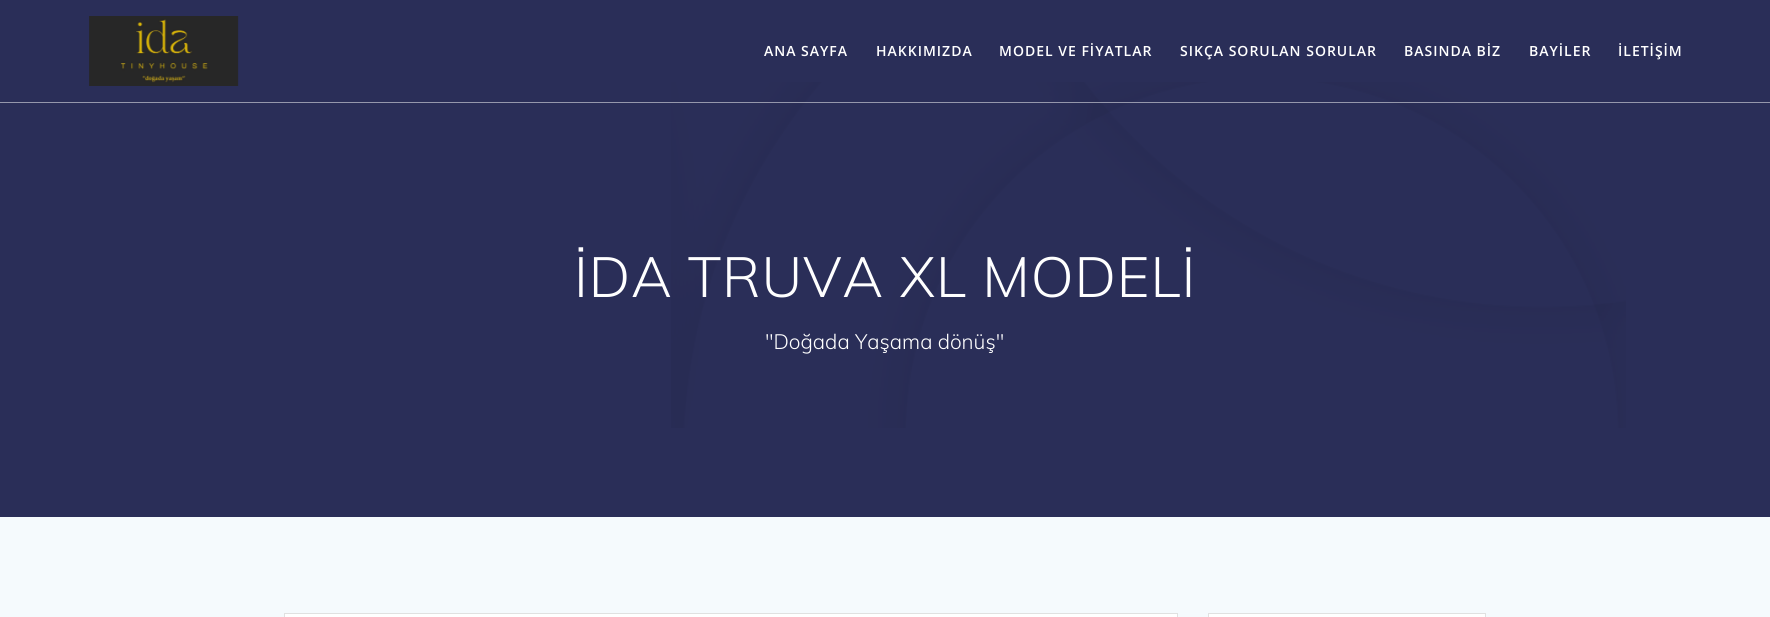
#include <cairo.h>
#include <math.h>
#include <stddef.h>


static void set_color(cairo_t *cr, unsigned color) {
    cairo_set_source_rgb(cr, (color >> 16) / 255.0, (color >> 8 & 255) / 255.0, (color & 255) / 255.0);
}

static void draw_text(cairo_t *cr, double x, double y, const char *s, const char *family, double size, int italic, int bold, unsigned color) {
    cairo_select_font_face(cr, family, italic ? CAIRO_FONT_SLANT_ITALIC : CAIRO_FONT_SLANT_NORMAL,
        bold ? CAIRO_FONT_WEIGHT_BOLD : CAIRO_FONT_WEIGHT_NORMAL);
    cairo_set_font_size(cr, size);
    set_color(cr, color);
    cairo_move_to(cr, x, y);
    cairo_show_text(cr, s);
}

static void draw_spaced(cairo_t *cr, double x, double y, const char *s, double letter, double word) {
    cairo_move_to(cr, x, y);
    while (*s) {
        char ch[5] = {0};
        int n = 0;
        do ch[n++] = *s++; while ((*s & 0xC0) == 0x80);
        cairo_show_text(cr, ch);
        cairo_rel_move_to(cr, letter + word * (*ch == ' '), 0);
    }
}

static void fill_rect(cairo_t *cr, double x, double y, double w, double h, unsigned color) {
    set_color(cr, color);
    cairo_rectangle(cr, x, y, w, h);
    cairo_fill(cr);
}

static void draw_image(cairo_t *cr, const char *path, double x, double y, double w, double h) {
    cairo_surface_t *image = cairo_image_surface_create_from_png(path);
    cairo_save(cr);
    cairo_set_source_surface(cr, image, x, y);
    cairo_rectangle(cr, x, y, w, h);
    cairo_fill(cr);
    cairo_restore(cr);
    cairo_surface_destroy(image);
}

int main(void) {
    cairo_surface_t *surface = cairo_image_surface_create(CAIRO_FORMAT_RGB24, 1770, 617);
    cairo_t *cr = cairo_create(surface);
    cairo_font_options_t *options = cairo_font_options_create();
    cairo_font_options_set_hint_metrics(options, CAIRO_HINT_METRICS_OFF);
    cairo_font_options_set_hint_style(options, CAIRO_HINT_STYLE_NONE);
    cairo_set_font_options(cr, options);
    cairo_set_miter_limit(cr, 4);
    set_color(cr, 0x2A2E58);
    cairo_paint(cr);
    draw_image(cr, "assets/img2.png", 671, 82, 955, 346);
    cairo_set_source_rgba(cr, 1, 1, 1, 0.5);
    cairo_rectangle(cr, 0, 102, 1770, 1);
    cairo_fill(cr);
    draw_image(cr, "assets/img1.png", 89, 16, 150, 70);
    cairo_select_font_face(cr, "Open Sans SemiBold", CAIRO_FONT_SLANT_NORMAL, CAIRO_FONT_WEIGHT_NORMAL);
    cairo_set_font_size(cr, 14);
    set_color(cr, 0xFFFFFF);
    draw_spaced(cr, 764, 56, "ANA SAYFA", 1, 0);
    draw_spaced(cr, 876, 56, "HAKKIMIZDA", 1, 0);
    draw_spaced(cr, 999, 56, "MODEL VE FİYATLAR", 1, 0);
    draw_spaced(cr, 1180, 56, "SIKÇA SORULAN SORULAR", 1, 0);
    draw_spaced(cr, 1404, 56, "BASINDA BİZ", 1, 0);
    draw_spaced(cr, 1529, 56, "BAYİLER", 1, 0);
    draw_spaced(cr, 1618, 56, "İLETİŞİM", 1, 0);
    cairo_select_font_face(cr, "Muli Light", CAIRO_FONT_SLANT_NORMAL, CAIRO_FONT_WEIGHT_NORMAL);
    cairo_set_font_size(cr, 56);
    draw_spaced(cr, 574, 297, "İDA TRUVA XL MODELİ", 0.9, 0);
    draw_text(cr, 765, 349, "\"Doğada Yaşama dönüş\"", "Muli Light", 20.75, 0, 0, 0xFFFFFF);
    fill_rect(cr, 0, 517, 1770, 100, 0xF5FAFD);
    set_color(cr, 0xFFFFFF);
    cairo_rectangle(cr, 284.5, 613.5, 893, 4);
    cairo_fill_preserve(cr);
    set_color(cr, 0xE0E1E1);
    cairo_set_line_width(cr, 1);
    cairo_stroke(cr);
    set_color(cr, 0xFFFFFF);
    cairo_rectangle(cr, 1208.5, 613.5, 277, 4);
    cairo_fill_preserve(cr);
    set_color(cr, 0xE0E1E1);
    cairo_stroke(cr);
    cairo_surface_write_to_png(surface, "output.png");
    cairo_font_options_destroy(options);
    cairo_destroy(cr);
    cairo_surface_destroy(surface);
    return 0;
}
